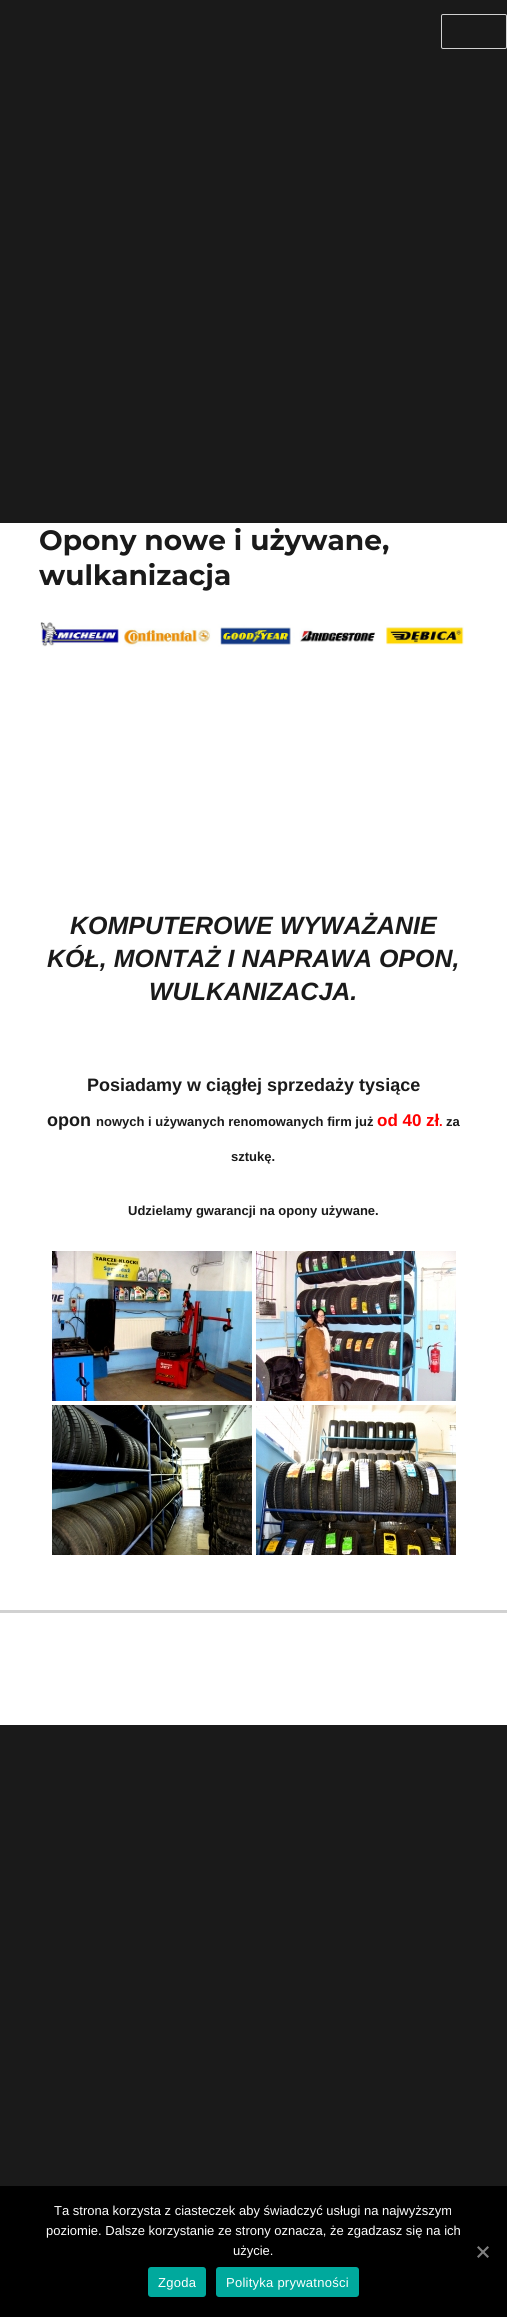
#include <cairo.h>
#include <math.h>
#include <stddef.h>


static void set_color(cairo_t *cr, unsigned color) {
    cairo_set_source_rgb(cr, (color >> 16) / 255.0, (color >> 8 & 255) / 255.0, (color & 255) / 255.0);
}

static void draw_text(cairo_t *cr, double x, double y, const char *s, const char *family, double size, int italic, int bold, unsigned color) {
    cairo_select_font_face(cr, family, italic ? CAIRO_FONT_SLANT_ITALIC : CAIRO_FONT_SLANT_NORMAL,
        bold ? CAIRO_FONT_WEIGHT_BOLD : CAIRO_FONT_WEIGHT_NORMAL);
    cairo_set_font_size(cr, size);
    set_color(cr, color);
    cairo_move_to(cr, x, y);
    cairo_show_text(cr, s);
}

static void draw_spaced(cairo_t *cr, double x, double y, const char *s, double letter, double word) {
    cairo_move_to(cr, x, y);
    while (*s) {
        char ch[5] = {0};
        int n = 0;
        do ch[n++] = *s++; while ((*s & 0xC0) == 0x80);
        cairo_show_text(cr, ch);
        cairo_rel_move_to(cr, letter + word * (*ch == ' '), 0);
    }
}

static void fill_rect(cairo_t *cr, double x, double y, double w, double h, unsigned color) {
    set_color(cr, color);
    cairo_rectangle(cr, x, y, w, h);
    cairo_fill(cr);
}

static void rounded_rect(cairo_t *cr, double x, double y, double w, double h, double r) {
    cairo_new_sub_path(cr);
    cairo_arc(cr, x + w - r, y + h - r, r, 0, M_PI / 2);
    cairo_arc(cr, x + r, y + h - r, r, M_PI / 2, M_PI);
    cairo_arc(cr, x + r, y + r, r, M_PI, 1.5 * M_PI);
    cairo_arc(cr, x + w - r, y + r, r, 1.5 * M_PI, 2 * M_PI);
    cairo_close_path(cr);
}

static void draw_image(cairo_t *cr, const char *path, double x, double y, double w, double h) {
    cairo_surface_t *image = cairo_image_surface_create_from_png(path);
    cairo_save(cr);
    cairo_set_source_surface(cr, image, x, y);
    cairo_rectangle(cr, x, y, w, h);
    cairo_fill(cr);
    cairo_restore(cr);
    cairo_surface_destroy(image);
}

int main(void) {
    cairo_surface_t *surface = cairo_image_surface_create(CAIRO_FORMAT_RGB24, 507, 2317);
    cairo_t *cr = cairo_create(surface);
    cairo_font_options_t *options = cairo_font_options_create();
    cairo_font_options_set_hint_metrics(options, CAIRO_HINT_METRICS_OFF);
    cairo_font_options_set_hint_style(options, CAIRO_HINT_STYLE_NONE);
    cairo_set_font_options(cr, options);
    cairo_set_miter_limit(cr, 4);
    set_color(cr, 0x1A1A1A);
    cairo_paint(cr);
    rounded_rect(cr, 441.5, 14.5, 65, 34, 1.5);
    set_color(cr, 0xD1D1D1);
    cairo_set_line_width(cr, 1);
    cairo_stroke(cr);
    fill_rect(cr, 0, 523, 507, 1087, 0xFFFFFF);
    draw_text(cr, 39, 550, "Opony nowe i używane,", "Montserrat", 28, 0, 1, 0x1A1A1A);
    draw_text(cr, 39, 585, "wulkanizacja", "Montserrat", 28, 0, 1, 0x1A1A1A);
    draw_image(cr, "assets/img1.png", 40, 622, 424, 25);
    draw_text(cr, 70, 934, "KOMPUTEROWE WYWAŻANIE", "Liberation Sans", 25, 1, 1, 0x1A1A1A);
    draw_text(cr, 47, 967, "KÓŁ, MONTAŻ I NAPRAWA OPON,", "Liberation Sans", 25, 1, 1, 0x1A1A1A);
    draw_text(cr, 149, 1000, "WULKANIZACJA.", "Liberation Sans", 25, 1, 1, 0x1A1A1A);
    draw_text(cr, 87, 1091, "Posiadamy w ciągłej sprzedaży tysiące", "Liberation Sans", 18, 0, 1, 0x1A1A1A);
    draw_text(cr, 47, 1126, "opon", "Liberation Sans", 18, 0, 1, 0x1A1A1A);
    draw_text(cr, 96, 1126, "nowych i używanych renomowanych firm już", "Liberation Sans", 13, 0, 1, 0x1A1A1A);
    draw_text(cr, 377, 1126, "od 40 zł", "Liberation Sans", 17, 0, 1, 0xFF0000);
    draw_text(cr, 439, 1126, ".", "Liberation Sans", 13, 0, 1, 0xFF0000);
    draw_text(cr, 446, 1126, "za", "Liberation Sans", 13, 0, 1, 0x1A1A1A);
    draw_text(cr, 231, 1161, "sztukę.", "Liberation Sans", 13, 0, 1, 0x1A1A1A);
    draw_text(cr, 128, 1215, "Udzielamy gwarancji na opony używane.", "Liberation Sans", 13, 0, 1, 0x1A1A1A);
    draw_image(cr, "assets/img2.png", 52, 1251, 200, 150);
    draw_image(cr, "assets/img3.png", 256, 1251, 200, 150);
    draw_image(cr, "assets/img4.png", 52, 1405, 200, 150);
    draw_image(cr, "assets/img5.png", 256, 1405, 200, 150);
    fill_rect(cr, 0, 1613, 507, 112, 0xFFFFFF);
    fill_rect(cr, 0, 1610, 507, 3, 0xD1D1D1);
    fill_rect(cr, 0, 2186, 507, 131, 0x000000);
    draw_text(cr, 54, 2215, "Ta strona korzysta z ciasteczek aby świadczyć usługi na najwyższym", "Liberation Sans", 13, 0, 0, 0xFFFFFF);
    draw_text(cr, 46, 2235, "poziomie. Dalsze korzystanie ze strony oznacza, że zgadzasz się na ich", "Liberation Sans", 13, 0, 0, 0xFFFFFF);
    draw_text(cr, 233, 2255, "użycie.", "Liberation Sans", 13, 0, 0, 0xFFFFFF);
    set_color(cr, 0x808080);
    cairo_new_path(cr);
    cairo_move_to(cr, 487.5, 2246);
    cairo_line_to(cr, 489, 2247.5);
    cairo_line_to(cr, 478.5, 2258);
    cairo_line_to(cr, 477, 2256.5);
    cairo_close_path(cr);
    cairo_fill(cr);
    cairo_new_path(cr);
    cairo_move_to(cr, 477, 2247.5);
    cairo_line_to(cr, 478.5, 2246);
    cairo_line_to(cr, 489, 2256.5);
    cairo_line_to(cr, 487.5, 2258);
    cairo_close_path(cr);
    cairo_fill(cr);
    set_color(cr, 0x00A99D);
    rounded_rect(cr, 148, 2267, 58, 30, 3);
    cairo_fill(cr);
    set_color(cr, 0xFFFFFF);
    draw_spaced(cr, 158, 2287, "Zgoda", 0.25, 0);
    set_color(cr, 0x00A99D);
    rounded_rect(cr, 216, 2267, 143, 30, 3);
    cairo_fill(cr);
    set_color(cr, 0xFFFFFF);
    draw_spaced(cr, 226, 2287, "Polityka prywatności", 0.25, 0);
    cairo_surface_write_to_png(surface, "output.png");
    cairo_font_options_destroy(options);
    cairo_destroy(cr);
    cairo_surface_destroy(surface);
    return 0;
}
